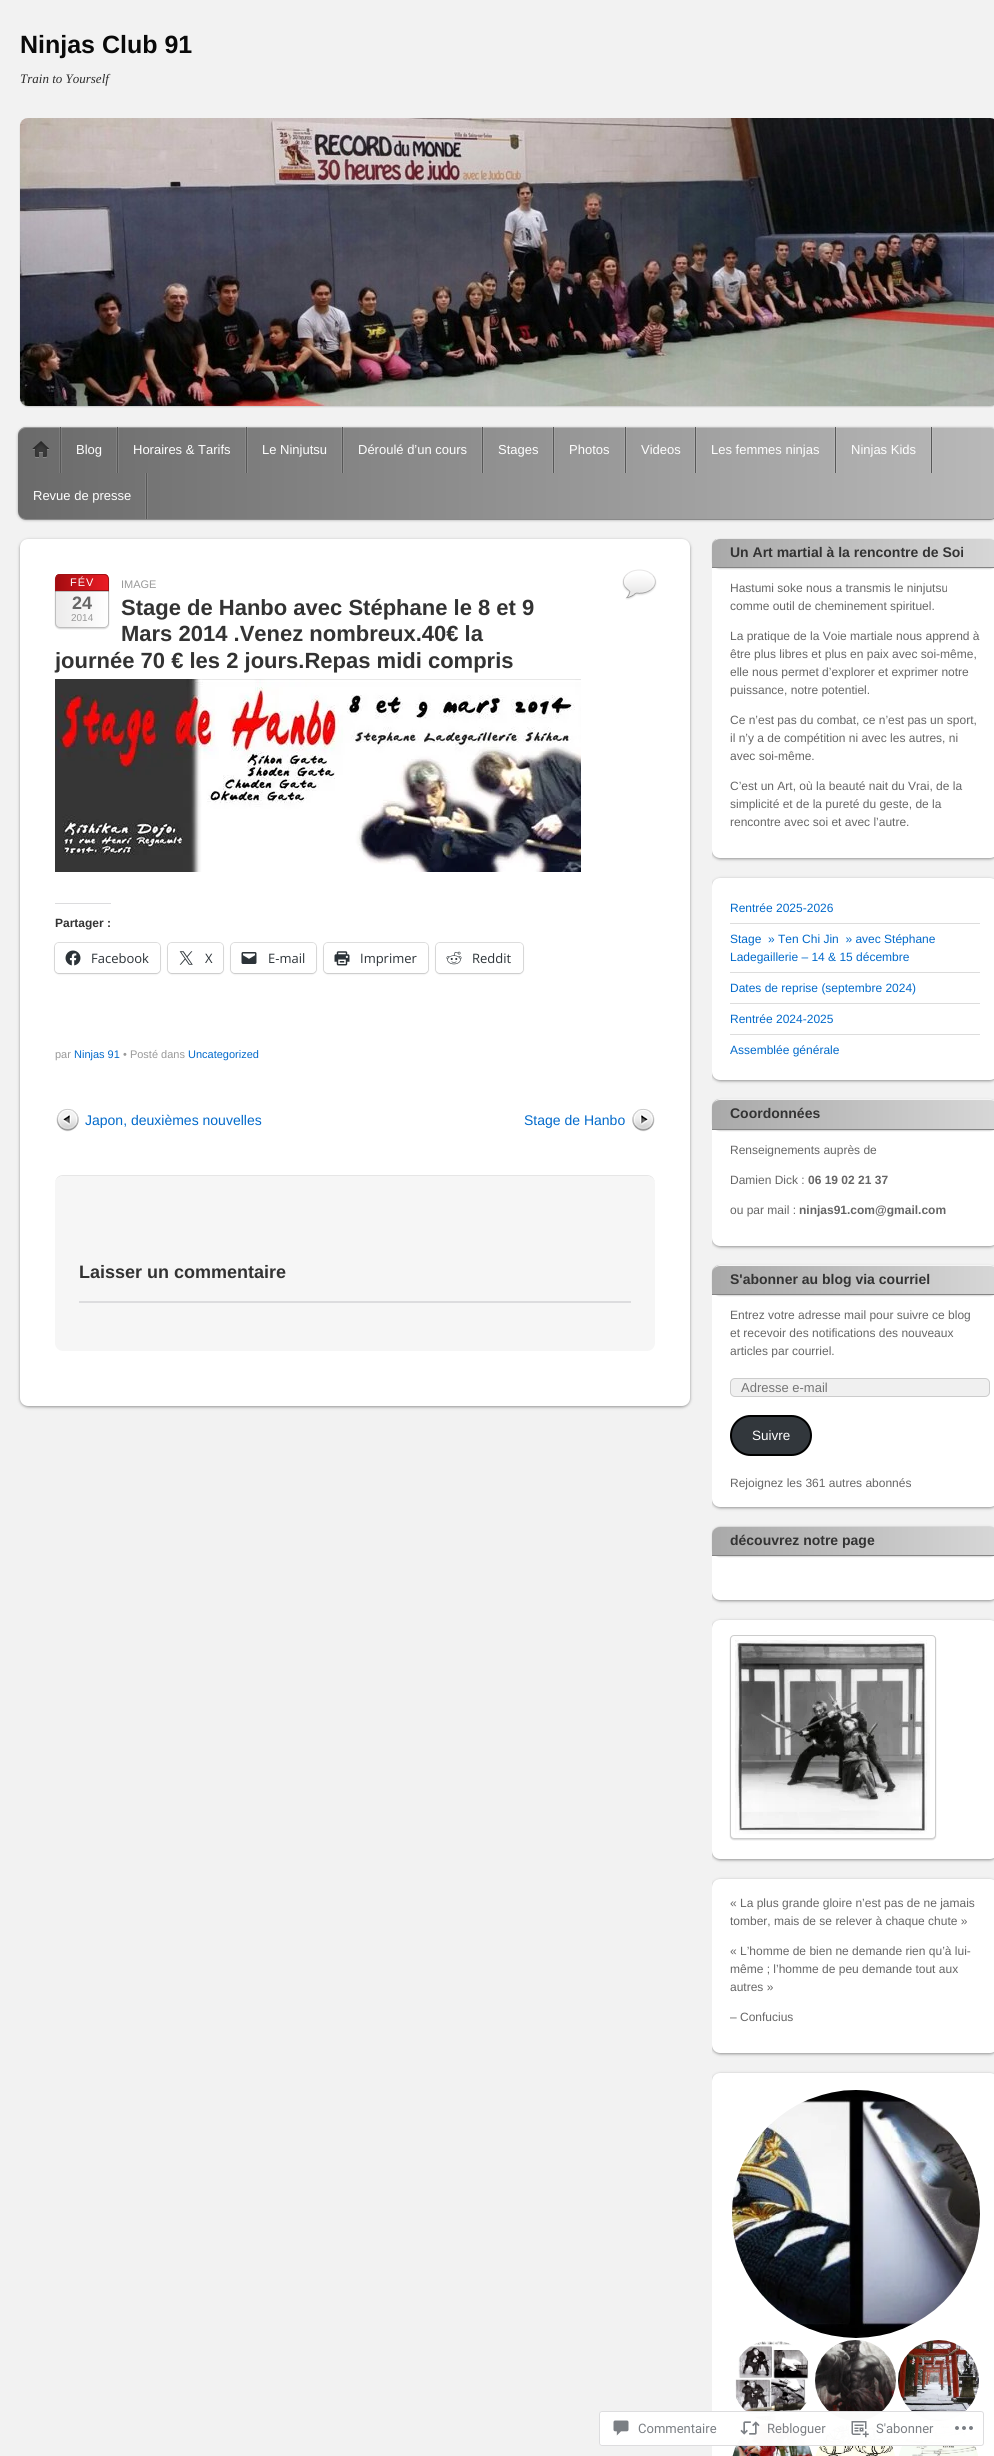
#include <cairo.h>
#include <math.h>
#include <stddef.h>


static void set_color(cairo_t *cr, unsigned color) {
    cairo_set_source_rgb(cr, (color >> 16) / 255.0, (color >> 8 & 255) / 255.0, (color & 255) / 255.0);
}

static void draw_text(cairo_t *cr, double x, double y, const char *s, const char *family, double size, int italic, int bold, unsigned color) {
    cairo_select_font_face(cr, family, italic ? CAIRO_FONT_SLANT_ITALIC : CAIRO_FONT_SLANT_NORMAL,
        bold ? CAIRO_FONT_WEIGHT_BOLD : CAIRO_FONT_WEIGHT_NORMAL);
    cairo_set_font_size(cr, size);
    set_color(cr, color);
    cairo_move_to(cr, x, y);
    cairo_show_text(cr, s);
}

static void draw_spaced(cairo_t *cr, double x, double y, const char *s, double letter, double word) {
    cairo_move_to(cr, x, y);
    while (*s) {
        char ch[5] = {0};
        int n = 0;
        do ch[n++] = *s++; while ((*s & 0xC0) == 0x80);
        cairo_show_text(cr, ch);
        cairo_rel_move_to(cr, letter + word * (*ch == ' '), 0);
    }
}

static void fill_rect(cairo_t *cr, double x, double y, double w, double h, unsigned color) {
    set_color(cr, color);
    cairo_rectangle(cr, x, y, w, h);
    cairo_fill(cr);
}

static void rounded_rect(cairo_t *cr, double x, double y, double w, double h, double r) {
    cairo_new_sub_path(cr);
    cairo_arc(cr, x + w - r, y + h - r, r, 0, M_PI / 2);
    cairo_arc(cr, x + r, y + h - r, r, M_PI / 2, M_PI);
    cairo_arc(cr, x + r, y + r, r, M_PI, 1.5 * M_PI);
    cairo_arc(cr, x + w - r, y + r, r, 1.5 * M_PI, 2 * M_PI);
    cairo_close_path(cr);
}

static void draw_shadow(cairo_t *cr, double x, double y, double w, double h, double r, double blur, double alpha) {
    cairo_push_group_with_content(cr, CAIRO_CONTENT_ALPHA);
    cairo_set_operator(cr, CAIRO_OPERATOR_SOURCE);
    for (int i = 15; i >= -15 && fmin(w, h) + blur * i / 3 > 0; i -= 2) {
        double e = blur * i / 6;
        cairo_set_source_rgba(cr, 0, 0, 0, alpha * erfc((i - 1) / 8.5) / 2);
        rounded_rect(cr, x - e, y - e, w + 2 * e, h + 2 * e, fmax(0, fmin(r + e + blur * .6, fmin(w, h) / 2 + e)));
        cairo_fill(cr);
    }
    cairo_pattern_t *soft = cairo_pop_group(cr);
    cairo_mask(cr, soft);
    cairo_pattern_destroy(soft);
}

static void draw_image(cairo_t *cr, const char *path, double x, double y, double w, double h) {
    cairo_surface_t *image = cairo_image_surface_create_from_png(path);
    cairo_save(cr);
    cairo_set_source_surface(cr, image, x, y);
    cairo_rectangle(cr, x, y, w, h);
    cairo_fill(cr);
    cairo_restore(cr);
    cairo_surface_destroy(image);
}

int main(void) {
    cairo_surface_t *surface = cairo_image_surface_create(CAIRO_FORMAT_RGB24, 994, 2456);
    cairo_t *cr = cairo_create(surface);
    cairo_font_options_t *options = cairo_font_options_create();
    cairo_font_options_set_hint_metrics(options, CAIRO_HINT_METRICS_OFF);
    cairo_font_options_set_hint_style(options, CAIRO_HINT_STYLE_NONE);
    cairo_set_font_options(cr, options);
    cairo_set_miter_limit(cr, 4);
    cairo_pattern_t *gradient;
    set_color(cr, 0xF2F2F2);
    cairo_paint(cr);
    draw_text(cr, 20, 53, "Ninjas Club 91", "Liberation Sans", 25, 0, 1, 0x0A0A0A);
    draw_text(cr, 20, 83, "Train to Yourself", "Liberation Serif", 13, 1, 0, 0x2D2D2D);
    set_color(cr, 0x000000);
    draw_shadow(cr, 20, 119, 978, 288, 8, 0.5, 0.15);
    draw_image(cr, "assets/img1.png", 20, 118, 974, 288);
    draw_shadow(cr, 18, 428, 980, 92, 8, 1.5, 0.3);
    cairo_set_source_rgba(cr, 0, 0, 0, 0.3);
    cairo_new_path(cr);
    cairo_move_to(cr, 18, 511);
    cairo_curve_to(cr, 18, 516, 21, 520, 26, 520);
    cairo_line_to(cr, 990, 520);
    cairo_curve_to(cr, 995, 520, 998, 516, 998, 511);
    cairo_curve_to(cr, 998, 515, 994, 519, 990, 519);
    cairo_line_to(cr, 26, 519);
    cairo_curve_to(cr, 22, 519, 18, 515, 18, 511);
    cairo_close_path(cr);
    cairo_fill(cr);
    gradient = cairo_pattern_create_linear(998, 473, 18, 473);
    cairo_pattern_add_color_stop_rgba(gradient, 0, 0.725, 0.725, 0.725, 1);
    cairo_pattern_add_color_stop_rgba(gradient, 1, 0.416, 0.416, 0.416, 1);
    cairo_set_source(cr, gradient);
    cairo_pattern_destroy(gradient);
    rounded_rect(cr, 18, 427, 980, 92, 8);
    cairo_fill(cr);
    cairo_set_source_rgba(cr, 1, 1, 1, 0.3);
    cairo_new_path(cr);
    cairo_move_to(cr, 26, 428);
    cairo_line_to(cr, 990, 428);
    cairo_curve_to(cr, 994, 428, 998, 432, 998, 436);
    cairo_curve_to(cr, 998, 431, 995, 427, 990, 427);
    cairo_line_to(cr, 26, 427);
    cairo_curve_to(cr, 21, 427, 18, 431, 18, 436);
    cairo_curve_to(cr, 18, 432, 22, 428, 26, 428);
    cairo_close_path(cr);
    cairo_fill(cr);
    cairo_set_source_rgba(cr, 1, 1, 1, 0.1);
    cairo_rectangle(cr, 61, 427, 1, 46);
    cairo_fill(cr);
    cairo_rectangle(cr, 59, 427, 1, 46);
    cairo_fill(cr);
    fill_rect(cr, 60, 427, 1, 46, 0x575757);
    draw_image(cr, "assets/img2.png", 32, 441, 18, 17);
    cairo_set_source_rgba(cr, 1, 1, 1, 0.1);
    cairo_rectangle(cr, 118, 427, 1, 46);
    cairo_fill(cr);
    cairo_rectangle(cr, 116, 427, 1, 46);
    cairo_fill(cr);
    fill_rect(cr, 117, 427, 1, 46, 0x575757);
    draw_text(cr, 76, 454, "Blog", "Liberation Sans", 13, 0, 0, 0xFFFFFF);
    cairo_set_source_rgba(cr, 1, 1, 1, 0.1);
    cairo_rectangle(cr, 247, 427, 1, 46);
    cairo_fill(cr);
    cairo_rectangle(cr, 245, 427, 1, 46);
    cairo_fill(cr);
    fill_rect(cr, 246, 427, 1, 46, 0x575757);
    draw_text(cr, 133, 454, "Horaires & Tarifs", "Liberation Sans", 13, 0, 0, 0xFFFFFF);
    cairo_set_source_rgba(cr, 1, 1, 1, 0.1);
    cairo_rectangle(cr, 343, 427, 1, 46);
    cairo_fill(cr);
    cairo_rectangle(cr, 341, 427, 1, 46);
    cairo_fill(cr);
    fill_rect(cr, 342, 427, 1, 46, 0x575757);
    draw_text(cr, 262, 454, "Le Ninjutsu", "Liberation Sans", 13, 0, 0, 0xFFFFFF);
    cairo_set_source_rgba(cr, 1, 1, 1, 0.1);
    cairo_rectangle(cr, 483, 427, 1, 46);
    cairo_fill(cr);
    cairo_rectangle(cr, 481, 427, 1, 46);
    cairo_fill(cr);
    fill_rect(cr, 482, 427, 1, 46, 0x575757);
    draw_text(cr, 358, 454, "Déroulé d’un cours", "Liberation Sans", 13, 0, 0, 0xFFFFFF);
    cairo_set_source_rgba(cr, 1, 1, 1, 0.1);
    cairo_rectangle(cr, 554, 427, 1, 46);
    cairo_fill(cr);
    cairo_rectangle(cr, 552, 427, 1, 46);
    cairo_fill(cr);
    fill_rect(cr, 553, 427, 1, 46, 0x575757);
    draw_text(cr, 498, 454, "Stages", "Liberation Sans", 13, 0, 0, 0xFFFFFF);
    cairo_set_source_rgba(cr, 1, 1, 1, 0.1);
    cairo_rectangle(cr, 626, 427, 1, 46);
    cairo_fill(cr);
    cairo_rectangle(cr, 624, 427, 1, 46);
    cairo_fill(cr);
    fill_rect(cr, 625, 427, 1, 46, 0x575757);
    draw_text(cr, 569, 454, "Photos", "Liberation Sans", 13, 0, 0, 0xFFFFFF);
    cairo_set_source_rgba(cr, 1, 1, 1, 0.1);
    cairo_rectangle(cr, 696, 427, 1, 46);
    cairo_fill(cr);
    cairo_rectangle(cr, 694, 427, 1, 46);
    cairo_fill(cr);
    fill_rect(cr, 695, 427, 1, 46, 0x575757);
    draw_text(cr, 641, 454, "Videos", "Liberation Sans", 13, 0, 0, 0xFFFFFF);
    cairo_set_source_rgba(cr, 1, 1, 1, 0.1);
    cairo_rectangle(cr, 836, 427, 1, 46);
    cairo_fill(cr);
    cairo_rectangle(cr, 834, 427, 1, 46);
    cairo_fill(cr);
    fill_rect(cr, 835, 427, 1, 46, 0x575757);
    draw_text(cr, 711, 454, "Les femmes ninjas", "Liberation Sans", 13, 0, 0, 0xFFFFFF);
    cairo_set_source_rgba(cr, 1, 1, 1, 0.1);
    cairo_rectangle(cr, 932, 427, 1, 46);
    cairo_fill(cr);
    cairo_rectangle(cr, 930, 427, 1, 46);
    cairo_fill(cr);
    fill_rect(cr, 931, 427, 1, 46, 0x575757);
    draw_text(cr, 851, 454, "Ninjas Kids", "Liberation Sans", 13, 0, 0, 0xFFFFFF);
    fill_rect(cr, 147, 473, 1, 46, 0x828282);
    fill_rect(cr, 145, 473, 1, 46, 0x828282);
    fill_rect(cr, 146, 473, 1, 46, 0x575757);
    draw_text(cr, 33, 500, "Revue de presse", "Liberation Sans", 13, 0, 0, 0xFFFFFF);
    set_color(cr, 0x000000);
    draw_shadow(cr, 20, 540, 670, 867, 8, 1.5, 0.4);
    set_color(cr, 0xFFFFFF);
    rounded_rect(cr, 20, 539, 670, 867, 8);
    cairo_fill(cr);
    set_color(cr, 0x000000);
    draw_shadow(cr, 55, 575, 54, 54, 5, 0.5, 0.15);
    cairo_save(cr);
    rounded_rect(cr, 55, 574, 54, 54, 5);
    cairo_clip(cr);
    gradient = cairo_pattern_create_linear(108, 601, 56, 601);
    cairo_pattern_add_color_stop_rgba(gradient, 0, 1, 1, 1, 1);
    cairo_pattern_add_color_stop_rgba(gradient, 1, 0.925, 0.922, 0.922, 1);
    cairo_set_source(cr, gradient);
    cairo_pattern_destroy(gradient);
    cairo_rectangle(cr, 56, 574, 52, 54);
    cairo_fill(cr);
    cairo_restore(cr);
    rounded_rect(cr, 55.5, 574.5, 53, 53, 4.5);
    set_color(cr, 0xBEBEBE);
    cairo_set_line_width(cr, 1);
    cairo_stroke(cr);
    cairo_set_source_rgba(cr, 0, 0, 0, 0.2);
    cairo_rectangle(cr, 55, 591, 54, 1);
    cairo_fill(cr);
    cairo_save(cr);
    cairo_new_path(cr);
    cairo_move_to(cr, 60, 574);
    cairo_line_to(cr, 104, 574);
    cairo_curve_to(cr, 107, 574, 109, 576, 109, 579);
    cairo_line_to(cr, 109, 591);
    cairo_line_to(cr, 55, 591);
    cairo_line_to(cr, 55, 579);
    cairo_curve_to(cr, 55, 576, 57, 574, 60, 574);
    cairo_close_path(cr);
    cairo_clip(cr);
    gradient = cairo_pattern_create_linear(108, 583, 56, 583);
    cairo_pattern_add_color_stop_rgba(gradient, 0, 0.922, 0.11, 0.141, 1);
    cairo_pattern_add_color_stop_rgba(gradient, 1, 0.639, 0.047, 0.063, 1);
    cairo_set_source(cr, gradient);
    cairo_pattern_destroy(gradient);
    cairo_rectangle(cr, 56, 574, 52, 16);
    cairo_fill(cr);
    cairo_restore(cr);
    cairo_new_path(cr);
    cairo_move_to(cr, 60, 574.5);
    cairo_line_to(cr, 104, 574.5);
    cairo_curve_to(cr, 106.5, 574.5, 108.5, 576.5, 108.5, 579);
    cairo_line_to(cr, 108.5, 590.5);
    cairo_line_to(cr, 55.5, 590.5);
    cairo_line_to(cr, 55.5, 579);
    cairo_curve_to(cr, 55.5, 576.5, 57.5, 574.5, 60, 574.5);
    cairo_close_path(cr);
    set_color(cr, 0xA11216);
    cairo_stroke(cr);
    cairo_set_font_size(cr, 11);
    set_color(cr, 0xFFFFFF);
    draw_spaced(cr, 70, 586, "FÉV", 1, 0);
    draw_text(cr, 72, 609, "24", "Liberation Sans", 18, 0, 1, 0x666666);
    draw_text(cr, 71, 621, "2014", "Liberation Sans", 10, 0, 0, 0x999999);
    draw_text(cr, 121, 588, "IMAGE", "Liberation Sans", 11, 0, 0, 0x999999);
    draw_text(cr, 121, 615, "Stage de Hanbo avec Stéphane le 8 et 9", "Liberation Sans", 22, 0, 1, 0x333333);
    draw_text(cr, 121, 641, "Mars 2014 .Venez nombreux.40€ la", "Liberation Sans", 22, 0, 1, 0x333333);
    draw_text(cr, 55, 668, "journée 70 € les 2 jours.Repas midi compris", "Liberation Sans", 22, 0, 1, 0x333333);
    draw_image(cr, "assets/img3.png", 55, 679, 526, 193);
    fill_rect(cr, 55, 903, 56, 1, 0xDCDCDE);
    draw_text(cr, 55, 927, "Partager :", "Liberation Sans", 12, 0, 1, 0x333333);
    rounded_rect(cr, 54.5, 942.5, 106, 31, 4.5);
    set_color(cr, 0xE0E0E0);
    cairo_stroke(cr);
    set_color(cr, 0x000000);
    draw_shadow(cr, 55, 944, 105, 30, 4, 1, 0.12);
    set_color(cr, 0xFFFFFF);
    rounded_rect(cr, 55, 943, 105, 30, 4);
    cairo_fill(cr);
    draw_image(cr, "assets/img4.png", 65, 950, 16, 16);
    draw_text(cr, 91, 963, "Facebook", "Open Sans", 13, 0, 0, 0x2C3338);
    rounded_rect(cr, 167.5, 942.5, 56, 31, 4.5);
    set_color(cr, 0xE0E0E0);
    cairo_stroke(cr);
    set_color(cr, 0x000000);
    draw_shadow(cr, 168, 944, 55, 30, 4, 1, 0.12);
    set_color(cr, 0xFFFFFF);
    rounded_rect(cr, 168, 943, 55, 30, 4);
    cairo_fill(cr);
    draw_image(cr, "assets/img5.png", 179, 951, 14, 14);
    draw_text(cr, 205, 963, "X", "Open Sans", 13, 0, 0, 0x2C3338);
    rounded_rect(cr, 230.5, 942.5, 86, 31, 4.5);
    set_color(cr, 0xE0E0E0);
    cairo_stroke(cr);
    set_color(cr, 0x000000);
    draw_shadow(cr, 231, 944, 85, 30, 4, 1, 0.12);
    set_color(cr, 0xFFFFFF);
    rounded_rect(cr, 231, 943, 85, 30, 4);
    cairo_fill(cr);
    draw_image(cr, "assets/img6.png", 241, 952, 16, 12);
    draw_text(cr, 268, 963, "E-mail", "Open Sans", 13, 0, 0, 0x2C3338);
    rounded_rect(cr, 323.5, 942.5, 105, 31, 4.5);
    set_color(cr, 0xE0E0E0);
    cairo_stroke(cr);
    set_color(cr, 0x000000);
    draw_shadow(cr, 324, 944, 104, 30, 4, 1, 0.12);
    set_color(cr, 0xFFFFFF);
    rounded_rect(cr, 324, 943, 104, 30, 4);
    cairo_fill(cr);
    draw_image(cr, "assets/img7.png", 334, 951, 16, 15);
    draw_text(cr, 360, 963, "Imprimer", "Open Sans", 13, 0, 0, 0x2C3338);
    rounded_rect(cr, 435.5, 942.5, 88, 31, 4.5);
    set_color(cr, 0xE0E0E0);
    cairo_stroke(cr);
    set_color(cr, 0x000000);
    draw_shadow(cr, 436, 944, 87, 30, 4, 1, 0.12);
    set_color(cr, 0xFFFFFF);
    rounded_rect(cr, 436, 943, 87, 30, 4);
    cairo_fill(cr);
    draw_image(cr, "assets/img8.png", 446, 951, 16, 14);
    draw_text(cr, 472, 963, "Reddit", "Open Sans", 13, 0, 0, 0x2C3338);
    draw_image(cr, "assets/img9.png", 622, 569, 35, 31);
    draw_text(cr, 55, 1058, "par", "Liberation Sans", 11, 0, 0, 0x999999);
    draw_text(cr, 74, 1058, "Ninjas 91", "Liberation Sans", 11, 0, 0, 0x026ACB);
    draw_text(cr, 123, 1058, "• Posté dans", "Liberation Sans", 11, 0, 0, 0x999999);
    draw_text(cr, 188, 1058, "Uncategorized", "Liberation Sans", 11, 0, 0, 0x026ACB);
    draw_image(cr, "assets/img10.png", 56, 1108, 23, 24);
    draw_text(cr, 85, 1125, "Japon, deuxièmes nouvelles", "Liberation Sans", 14, 0, 0, 0x026ACB);
    draw_image(cr, "assets/img11.png", 632, 1108, 23, 24);
    draw_text(cr, 524, 1125, "Stage de Hanbo", "Liberation Sans", 14, 0, 0, 0x026ACB);
    set_color(cr, 0xE6E6E6);
    cairo_new_path(cr);
    cairo_move_to(cr, 63, 1175);
    cairo_curve_to(cr, 58, 1175, 55, 1179, 55, 1184);
    cairo_curve_to(cr, 55, 1180, 59, 1176, 63, 1176);
    cairo_line_to(cr, 647, 1176);
    cairo_curve_to(cr, 651, 1176, 655, 1180, 655, 1184);
    cairo_curve_to(cr, 655, 1179, 652, 1175, 647, 1175);
    cairo_close_path(cr);
    cairo_fill(cr);
    set_color(cr, 0xF6F6F6);
    rounded_rect(cr, 55, 1176, 600, 175, 8);
    cairo_fill(cr);
    draw_text(cr, 79, 1278, "Laisser un commentaire", "Liberation Sans", 18, 0, 1, 0x333333);
    fill_rect(cr, 79, 1301, 552, 2, 0xDCDCDE);
    cairo_save(cr);
    cairo_rectangle(cr, 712, 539, 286, 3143);
    cairo_clip(cr);
    set_color(cr, 0x000000);
    draw_shadow(cr, 712, 540, 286, 319, 8, 1.5, 0.4);
    cairo_restore(cr);
    set_color(cr, 0xFFFFFF);
    rounded_rect(cr, 712, 539, 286, 319, 8);
    cairo_fill(cr);
    set_color(cr, 0x000000);
    draw_shadow(cr, 712, 539, 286, 30, 8, 0.5, 0.15);
    cairo_save(cr);
    cairo_rectangle(cr, 712, 539, 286, 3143);
    cairo_clip(cr);
    gradient = cairo_pattern_create_linear(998, 553, 712, 553);
    cairo_pattern_add_color_stop_rgba(gradient, 0, 0.843, 0.843, 0.843, 1);
    cairo_pattern_add_color_stop_rgba(gradient, 1, 0.663, 0.663, 0.663, 1);
    cairo_set_source(cr, gradient);
    cairo_pattern_destroy(gradient);
    cairo_new_path(cr);
    cairo_move_to(cr, 720, 538);
    cairo_line_to(cr, 990, 538);
    cairo_curve_to(cr, 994.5, 538, 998, 541.5, 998, 546);
    cairo_line_to(cr, 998, 568);
    cairo_line_to(cr, 712, 568);
    cairo_line_to(cr, 712, 546);
    cairo_curve_to(cr, 712, 541.5, 715.5, 538, 720, 538);
    cairo_close_path(cr);
    cairo_fill(cr);
    set_color(cr, 0xF5F5F5);
    cairo_new_path(cr);
    cairo_move_to(cr, 720, 538);
    cairo_curve_to(cr, 716, 538, 712, 542, 712, 546);
    cairo_curve_to(cr, 712, 542, 716, 539, 720, 539);
    cairo_line_to(cr, 990, 539);
    cairo_curve_to(cr, 994, 539, 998, 542, 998, 546);
    cairo_curve_to(cr, 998, 542, 994, 538, 990, 538);
    cairo_close_path(cr);
    cairo_fill(cr);
    cairo_restore(cr);
    fill_rect(cr, 712, 567, 282, 1, 0x848484);
    draw_text(cr, 730, 557, "Un Art martial à la rencontre de Soi", "Liberation Sans", 14, 0, 1, 0x333333);
    draw_text(cr, 730, 592, "Hastumi soke nous a transmis le ninjutsu", "Liberation Sans", 12, 0, 0, 0x666666);
    draw_text(cr, 730, 610, "comme outil de cheminement spirituel.", "Liberation Sans", 12, 0, 0, 0x666666);
    draw_text(cr, 730, 640, "La pratique de la Voie martiale nous apprend à", "Liberation Sans", 12, 0, 0, 0x666666);
    draw_text(cr, 730, 658, "être plus libres et plus en paix avec soi-même,", "Liberation Sans", 12, 0, 0, 0x666666);
    draw_text(cr, 730, 676, "elle nous permet d’explorer et exprimer notre", "Liberation Sans", 12, 0, 0, 0x666666);
    draw_text(cr, 730, 694, "puissance, notre potentiel.", "Liberation Sans", 12, 0, 0, 0x666666);
    draw_text(cr, 730, 724, "Ce n’est pas du combat, ce n’est pas un sport,", "Liberation Sans", 12, 0, 0, 0x666666);
    draw_text(cr, 730, 742, "il n’y a de compétition ni avec les autres, ni", "Liberation Sans", 12, 0, 0, 0x666666);
    draw_text(cr, 730, 760, "avec soi-même.", "Liberation Sans", 12, 0, 0, 0x666666);
    draw_text(cr, 730, 790, "C’est un Art, où la beauté nait du Vrai, de la", "Liberation Sans", 12, 0, 0, 0x666666);
    draw_text(cr, 730, 808, "simplicité et de la pureté du geste, de la", "Liberation Sans", 12, 0, 0, 0x666666);
    draw_text(cr, 730, 826, "rencontre avec soi et avec l’autre.", "Liberation Sans", 12, 0, 0, 0x666666);
    cairo_save(cr);
    cairo_rectangle(cr, 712, 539, 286, 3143);
    cairo_clip(cr);
    set_color(cr, 0x000000);
    draw_shadow(cr, 712, 879, 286, 202, 8, 1.5, 0.4);
    cairo_restore(cr);
    set_color(cr, 0xFFFFFF);
    rounded_rect(cr, 712, 878, 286, 202, 8);
    cairo_fill(cr);
    fill_rect(cr, 730, 923, 250, 1, 0xDDDDDD);
    draw_text(cr, 730, 912, "Rentrée 2025-2026", "Liberation Sans", 12, 0, 0, 0x026ACB);
    fill_rect(cr, 730, 972, 250, 1, 0xDDDDDD);
    draw_text(cr, 730, 943, "Stage  » Ten Chi Jin  » avec Stéphane", "Liberation Sans", 12, 0, 0, 0x026ACB);
    draw_text(cr, 730, 961, "Ladegaillerie – 14 & 15 décembre", "Liberation Sans", 12, 0, 0, 0x026ACB);
    fill_rect(cr, 730, 1003, 250, 1, 0xDDDDDD);
    draw_text(cr, 730, 992, "Dates de reprise (septembre 2024)", "Liberation Sans", 12, 0, 0, 0x026ACB);
    fill_rect(cr, 730, 1034, 250, 1, 0xDDDDDD);
    draw_text(cr, 730, 1023, "Rentrée 2024-2025", "Liberation Sans", 12, 0, 0, 0x026ACB);
    draw_text(cr, 730, 1054, "Assemblée générale", "Liberation Sans", 12, 0, 0, 0x026ACB);
    cairo_save(cr);
    cairo_rectangle(cr, 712, 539, 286, 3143);
    cairo_clip(cr);
    set_color(cr, 0x000000);
    draw_shadow(cr, 712, 1101, 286, 146, 8, 1.5, 0.4);
    cairo_restore(cr);
    set_color(cr, 0xFFFFFF);
    rounded_rect(cr, 712, 1100, 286, 146, 8);
    cairo_fill(cr);
    set_color(cr, 0x000000);
    draw_shadow(cr, 712, 1100, 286, 31, 8, 0.5, 0.15);
    gradient = cairo_pattern_create_linear(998, 1115, 712, 1115);
    cairo_pattern_add_color_stop_rgba(gradient, 0, 0.843, 0.843, 0.843, 1);
    cairo_pattern_add_color_stop_rgba(gradient, 1, 0.663, 0.663, 0.663, 1);
    cairo_set_source(cr, gradient);
    cairo_pattern_destroy(gradient);
    cairo_new_path(cr);
    cairo_move_to(cr, 720, 1099);
    cairo_line_to(cr, 990, 1099);
    cairo_curve_to(cr, 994.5, 1099, 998, 1102.5, 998, 1107);
    cairo_line_to(cr, 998, 1130);
    cairo_line_to(cr, 712, 1130);
    cairo_line_to(cr, 712, 1107);
    cairo_curve_to(cr, 712, 1102.5, 715.5, 1099, 720, 1099);
    cairo_close_path(cr);
    cairo_fill(cr);
    set_color(cr, 0xF5F5F5);
    cairo_new_path(cr);
    cairo_move_to(cr, 720, 1099);
    cairo_curve_to(cr, 716, 1099, 712, 1103, 712, 1107);
    cairo_curve_to(cr, 712, 1103, 716, 1100, 720, 1100);
    cairo_line_to(cr, 990, 1100);
    cairo_curve_to(cr, 994, 1100, 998, 1103, 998, 1107);
    cairo_curve_to(cr, 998, 1103, 994, 1099, 990, 1099);
    cairo_close_path(cr);
    cairo_fill(cr);
    fill_rect(cr, 712, 1129, 282, 1, 0x848484);
    draw_text(cr, 730, 1118, "Coordonnées", "Liberation Sans", 14, 0, 1, 0x333333);
    draw_text(cr, 730, 1154, "Renseignements auprès de", "Liberation Sans", 12, 0, 0, 0x666666);
    draw_text(cr, 730, 1184, "Damien Dick :", "Liberation Sans", 12, 0, 0, 0x666666);
    draw_text(cr, 808, 1184, "06 19 02 21 37", "Liberation Sans", 12, 0, 1, 0x666666);
    draw_text(cr, 730, 1214, "ou par mail :", "Liberation Sans", 12, 0, 0, 0x666666);
    draw_text(cr, 799, 1214, "ninjas91.com@gmail.com", "Liberation Sans", 12, 0, 1, 0x666666);
    cairo_save(cr);
    cairo_rectangle(cr, 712, 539, 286, 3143);
    cairo_clip(cr);
    set_color(cr, 0x000000);
    draw_shadow(cr, 712, 1267, 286, 241, 8, 1.5, 0.4);
    cairo_restore(cr);
    set_color(cr, 0xFFFFFF);
    rounded_rect(cr, 712, 1266, 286, 241, 8);
    cairo_fill(cr);
    set_color(cr, 0x000000);
    draw_shadow(cr, 712, 1266, 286, 30, 8, 0.5, 0.15);
    gradient = cairo_pattern_create_linear(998, 1280, 712, 1280);
    cairo_pattern_add_color_stop_rgba(gradient, 0, 0.843, 0.843, 0.843, 1);
    cairo_pattern_add_color_stop_rgba(gradient, 1, 0.663, 0.663, 0.663, 1);
    cairo_set_source(cr, gradient);
    cairo_pattern_destroy(gradient);
    cairo_new_path(cr);
    cairo_move_to(cr, 720, 1265);
    cairo_line_to(cr, 990, 1265);
    cairo_curve_to(cr, 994.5, 1265, 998, 1268.5, 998, 1273);
    cairo_line_to(cr, 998, 1295);
    cairo_line_to(cr, 712, 1295);
    cairo_line_to(cr, 712, 1273);
    cairo_curve_to(cr, 712, 1268.5, 715.5, 1265, 720, 1265);
    cairo_close_path(cr);
    cairo_fill(cr);
    set_color(cr, 0xF5F5F5);
    cairo_new_path(cr);
    cairo_move_to(cr, 720, 1265);
    cairo_curve_to(cr, 716, 1265, 712, 1269, 712, 1273);
    cairo_curve_to(cr, 712, 1269, 716, 1266, 720, 1266);
    cairo_line_to(cr, 990, 1266);
    cairo_curve_to(cr, 994, 1266, 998, 1269, 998, 1273);
    cairo_curve_to(cr, 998, 1269, 994, 1265, 990, 1265);
    cairo_close_path(cr);
    cairo_fill(cr);
    fill_rect(cr, 712, 1294, 282, 1, 0x848484);
    draw_text(cr, 730, 1284, "S'abonner au blog via courriel", "Liberation Sans", 14, 0, 1, 0x333333);
    draw_text(cr, 730, 1319, "Entrez votre adresse mail pour suivre ce blog", "Liberation Sans", 12, 0, 0, 0x666666);
    draw_text(cr, 730, 1337, "et recevoir des notifications des nouveaux", "Liberation Sans", 12, 0, 0, 0x666666);
    draw_text(cr, 730, 1355, "articles par courriel.", "Liberation Sans", 12, 0, 0, 0x666666);
    set_color(cr, 0xF0F0F0);
    rounded_rect(cr, 730.5, 1378.5, 259, 18, 4.5);
    cairo_fill_preserve(cr);
    set_color(cr, 0xCCCCCC);
    cairo_stroke(cr);
    draw_text(cr, 741, 1392, "Adresse e-mail", "Liberation Sans", 13, 0, 0, 0x757575);
    set_color(cr, 0x32373C);
    rounded_rect(cr, 731, 1416, 80, 39, 19.5);
    cairo_fill_preserve(cr);
    set_color(cr, 0x000000);
    cairo_set_line_width(cr, 2);
    cairo_stroke(cr);
    draw_text(cr, 752, 1440, "Suivre", "Liberation Sans", 13.5, 0, 0, 0xFFFFFF);
    draw_text(cr, 730, 1487, "Rejoignez les 361 autres abonnés", "Liberation Sans", 12, 0, 0, 0x666666);
    cairo_save(cr);
    cairo_rectangle(cr, 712, 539, 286, 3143);
    cairo_clip(cr);
    set_color(cr, 0x000000);
    draw_shadow(cr, 712, 1528, 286, 73, 8, 1.5, 0.4);
    cairo_restore(cr);
    set_color(cr, 0xFFFFFF);
    rounded_rect(cr, 712, 1527, 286, 73, 8);
    cairo_fill(cr);
    set_color(cr, 0x000000);
    draw_shadow(cr, 712, 1527, 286, 30, 8, 0.5, 0.15);
    cairo_save(cr);
    rounded_rect(cr, 712, 1527, 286, 73, 8);
    cairo_clip(cr);
    gradient = cairo_pattern_create_linear(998, 1541, 712, 1541);
    cairo_pattern_add_color_stop_rgba(gradient, 0, 0.843, 0.843, 0.843, 1);
    cairo_pattern_add_color_stop_rgba(gradient, 1, 0.663, 0.663, 0.663, 1);
    cairo_set_source(cr, gradient);
    cairo_pattern_destroy(gradient);
    cairo_new_path(cr);
    cairo_move_to(cr, 720, 1526);
    cairo_line_to(cr, 990, 1526);
    cairo_curve_to(cr, 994.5, 1526, 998, 1529.5, 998, 1534);
    cairo_line_to(cr, 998, 1556);
    cairo_line_to(cr, 712, 1556);
    cairo_line_to(cr, 712, 1534);
    cairo_curve_to(cr, 712, 1529.5, 715.5, 1526, 720, 1526);
    cairo_close_path(cr);
    cairo_fill(cr);
    cairo_restore(cr);
    fill_rect(cr, 712, 1555, 282, 1, 0x848484);
    draw_text(cr, 730, 1545, "découvrez notre page", "Liberation Sans", 14, 0, 1, 0x333333);
    cairo_save(cr);
    cairo_rectangle(cr, 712, 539, 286, 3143);
    cairo_clip(cr);
    set_color(cr, 0x000000);
    draw_shadow(cr, 712, 1621, 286, 239, 8, 1.5, 0.4);
    cairo_restore(cr);
    set_color(cr, 0xFFFFFF);
    rounded_rect(cr, 712, 1620, 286, 239, 8);
    cairo_fill(cr);
    set_color(cr, 0x000000);
    draw_shadow(cr, 730, 1636, 206, 204, 4, 0.5, 0.15);
    set_color(cr, 0xFFFFFF);
    rounded_rect(cr, 730.5, 1635.5, 205, 203, 3.5);
    cairo_fill_preserve(cr);
    set_color(cr, 0xCCCCCC);
    cairo_set_line_width(cr, 1);
    cairo_stroke(cr);
    draw_image(cr, "assets/img12.png", 735, 1640, 195, 194);
    cairo_save(cr);
    cairo_rectangle(cr, 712, 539, 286, 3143);
    cairo_clip(cr);
    set_color(cr, 0x000000);
    draw_shadow(cr, 712, 1880, 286, 174, 8, 1.5, 0.4);
    cairo_restore(cr);
    set_color(cr, 0xFFFFFF);
    rounded_rect(cr, 712, 1879, 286, 174, 8);
    cairo_fill(cr);
    draw_text(cr, 730, 1907, "« La plus grande gloire n’est pas de ne jamais", "Liberation Sans", 12, 0, 0, 0x666666);
    draw_text(cr, 730, 1925, "tomber, mais de se relever à chaque chute »", "Liberation Sans", 12, 0, 0, 0x666666);
    draw_text(cr, 730, 1955, "« L’homme de bien ne demande rien qu’à lui-", "Liberation Sans", 12, 0, 0, 0x666666);
    draw_text(cr, 730, 1973, "même ; l’homme de peu demande tout aux", "Liberation Sans", 12, 0, 0, 0x666666);
    draw_text(cr, 730, 1991, "autres »", "Liberation Sans", 12, 0, 0, 0x666666);
    draw_text(cr, 730, 2021, "– Confucius", "Liberation Sans", 12, 0, 0, 0x666666);
    cairo_save(cr);
    cairo_rectangle(cr, 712, 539, 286, 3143);
    cairo_clip(cr);
    set_color(cr, 0x000000);
    draw_shadow(cr, 712, 2074, 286, 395, 8, 1.5, 0.4);
    cairo_restore(cr);
    set_color(cr, 0xFFFFFF);
    rounded_rect(cr, 712, 2073, 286, 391, 8);
    cairo_fill(cr);
    draw_image(cr, "assets/img13.png", 732, 2090, 248, 248);
    draw_image(cr, "assets/img14.png", 735, 2341, 74, 80);
    draw_image(cr, "assets/img15.png", 815, 2340, 81, 81);
    draw_image(cr, "assets/img16.png", 898, 2340, 81, 81);
    draw_image(cr, "assets/img17.png", 732, 2423, 81, 33);
    draw_image(cr, "assets/img18.png", 815, 2423, 80, 33);
    draw_image(cr, "assets/img19.png", 899, 2423, 79, 33);
    cairo_set_source_rgba(cr, 1, 1, 1, 0.98);
    rounded_rect(cr, 599, 2411, 385, 35, 3);
    cairo_fill(cr);
    rounded_rect(cr, 599.5, 2411.5, 384, 34, 2.5);
    cairo_set_source_rgba(cr, 0.863, 0.863, 0.871, 0.98);
    cairo_stroke(cr);
    draw_image(cr, "assets/img20.png", 613, 2420, 16, 16);
    draw_text(cr, 638, 2433, "Commentaire", "Roboto", 13, 0, 0, 0x7B7F84);
    draw_image(cr, "assets/img21.png", 740, 2421, 20, 14);
    draw_text(cr, 767, 2433, "Rebloguer", "Roboto", 13, 0, 0, 0x7B7F84);
    draw_image(cr, "assets/img22.png", 851, 2421, 18, 17);
    draw_text(cr, 876, 2433, "S'abonner", "Roboto", 13, 0, 0, 0x7B7F84);
    draw_image(cr, "assets/img23.png", 955, 2426, 18, 4);
    cairo_surface_write_to_png(surface, "output.png");
    cairo_font_options_destroy(options);
    cairo_destroy(cr);
    cairo_surface_destroy(surface);
    return 0;
}
